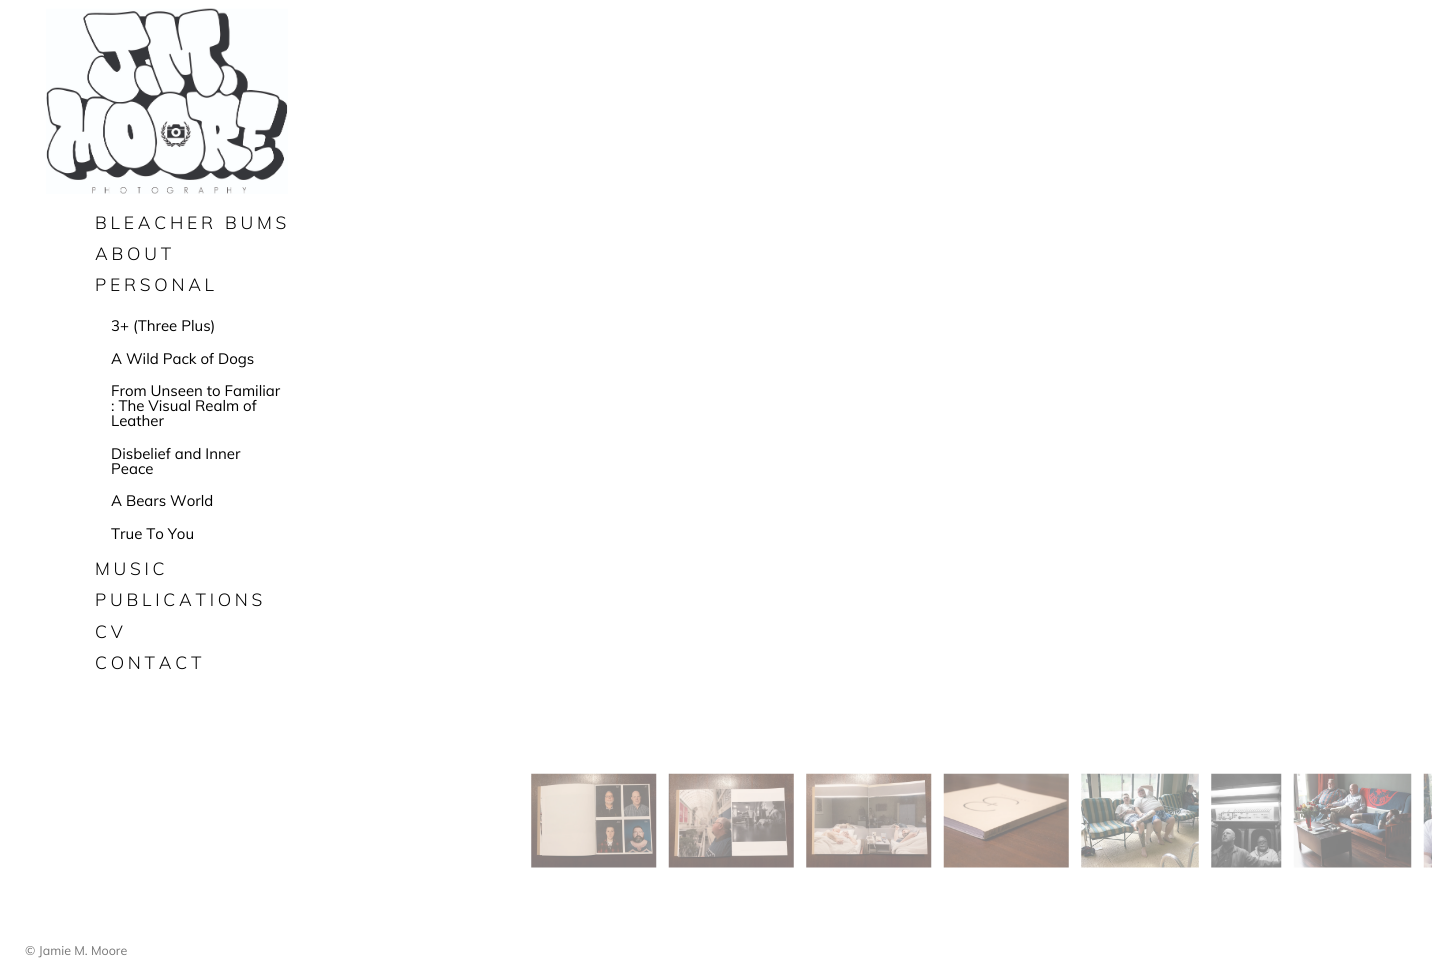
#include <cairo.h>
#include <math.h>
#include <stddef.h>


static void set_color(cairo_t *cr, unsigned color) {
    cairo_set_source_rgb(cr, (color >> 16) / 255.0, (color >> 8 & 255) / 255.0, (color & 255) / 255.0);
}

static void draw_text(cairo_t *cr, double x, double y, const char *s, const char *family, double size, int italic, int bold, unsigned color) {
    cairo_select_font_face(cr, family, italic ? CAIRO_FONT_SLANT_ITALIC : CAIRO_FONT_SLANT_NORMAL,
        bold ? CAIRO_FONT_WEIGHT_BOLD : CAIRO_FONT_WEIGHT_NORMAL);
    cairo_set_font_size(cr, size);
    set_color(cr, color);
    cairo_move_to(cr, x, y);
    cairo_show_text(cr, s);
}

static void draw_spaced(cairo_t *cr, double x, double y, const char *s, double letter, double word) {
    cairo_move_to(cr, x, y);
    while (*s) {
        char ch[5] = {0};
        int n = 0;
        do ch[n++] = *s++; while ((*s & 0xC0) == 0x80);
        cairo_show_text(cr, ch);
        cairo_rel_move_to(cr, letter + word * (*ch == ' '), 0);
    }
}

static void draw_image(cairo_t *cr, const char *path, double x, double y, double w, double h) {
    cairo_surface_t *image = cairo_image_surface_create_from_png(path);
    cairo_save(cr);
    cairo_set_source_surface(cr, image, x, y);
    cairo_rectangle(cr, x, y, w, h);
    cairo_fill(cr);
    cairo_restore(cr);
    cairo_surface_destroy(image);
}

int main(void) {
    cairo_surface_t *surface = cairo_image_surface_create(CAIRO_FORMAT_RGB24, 1432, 972);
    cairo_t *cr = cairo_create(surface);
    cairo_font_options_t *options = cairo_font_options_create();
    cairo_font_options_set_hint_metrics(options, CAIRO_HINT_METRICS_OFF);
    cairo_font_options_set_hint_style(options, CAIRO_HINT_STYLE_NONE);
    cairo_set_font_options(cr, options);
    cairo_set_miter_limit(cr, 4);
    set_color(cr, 0xFFFFFF);
    cairo_paint(cr);
    draw_image(cr, "assets/img1.png", 46, 8, 242, 186);
    cairo_select_font_face(cr, "Muli Light", CAIRO_FONT_SLANT_NORMAL, CAIRO_FONT_WEIGHT_NORMAL);
    cairo_set_font_size(cr, 17.5);
    set_color(cr, 0x000000);
    draw_spaced(cr, 95, 229, "BLEACHER BUMS", 3.75, 0);
    draw_spaced(cr, 95, 260, "ABOUT", 3.75, 0);
    draw_spaced(cr, 95, 291, "PERSONAL", 3.75, 0);
    draw_text(cr, 111, 331, "3+ (Three Plus)", "Muli", 15, 0, 0, 0x000000);
    draw_text(cr, 111, 364, "A Wild Pack of Dogs", "Muli", 15, 0, 0, 0x000000);
    draw_text(cr, 111, 396, "From Unseen to Familiar", "Muli", 15, 0, 0, 0x000000);
    draw_text(cr, 111, 411, ": The Visual Realm of", "Muli", 15, 0, 0, 0x000000);
    draw_text(cr, 111, 426, "Leather", "Muli", 15, 0, 0, 0x000000);
    draw_text(cr, 111, 459, "Disbelief and Inner", "Muli", 15, 0, 0, 0x000000);
    draw_text(cr, 111, 474, "Peace", "Muli", 15, 0, 0, 0x000000);
    draw_text(cr, 111, 506, "A Bears World", "Muli", 15, 0, 0, 0x000000);
    draw_text(cr, 111, 539, "True To You", "Muli", 15, 0, 0, 0x000000);
    cairo_select_font_face(cr, "Muli Light", CAIRO_FONT_SLANT_NORMAL, CAIRO_FONT_WEIGHT_NORMAL);
    cairo_set_font_size(cr, 17.5);
    draw_spaced(cr, 95, 575, "MUSIC", 3.75, 0);
    draw_spaced(cr, 95, 606, "PUBLICATIONS", 3.75, 0);
    draw_spaced(cr, 95, 638, "CV", 3.75, 0);
    draw_spaced(cr, 95, 669, "CONTACT", 3.75, 0);
    draw_image(cr, "assets/img2.png", 531, 773, 126, 95);
    draw_image(cr, "assets/img3.png", 668, 773, 126, 95);
    draw_image(cr, "assets/img4.png", 806, 773, 126, 95);
    draw_image(cr, "assets/img5.png", 943, 773, 126, 95);
    draw_image(cr, "assets/img6.png", 1081, 773, 118, 95);
    draw_image(cr, "assets/img7.png", 1211, 773, 71, 95);
    draw_image(cr, "assets/img8.png", 1293, 773, 119, 95);
    draw_image(cr, "assets/img9.png", 1423, 773, 9, 95);
    draw_text(cr, 25, 955, "© Jamie M. Moore", "Muli", 12.5, 0, 0, 0x777777);
    cairo_surface_write_to_png(surface, "output.png");
    cairo_font_options_destroy(options);
    cairo_destroy(cr);
    cairo_surface_destroy(surface);
    return 0;
}
